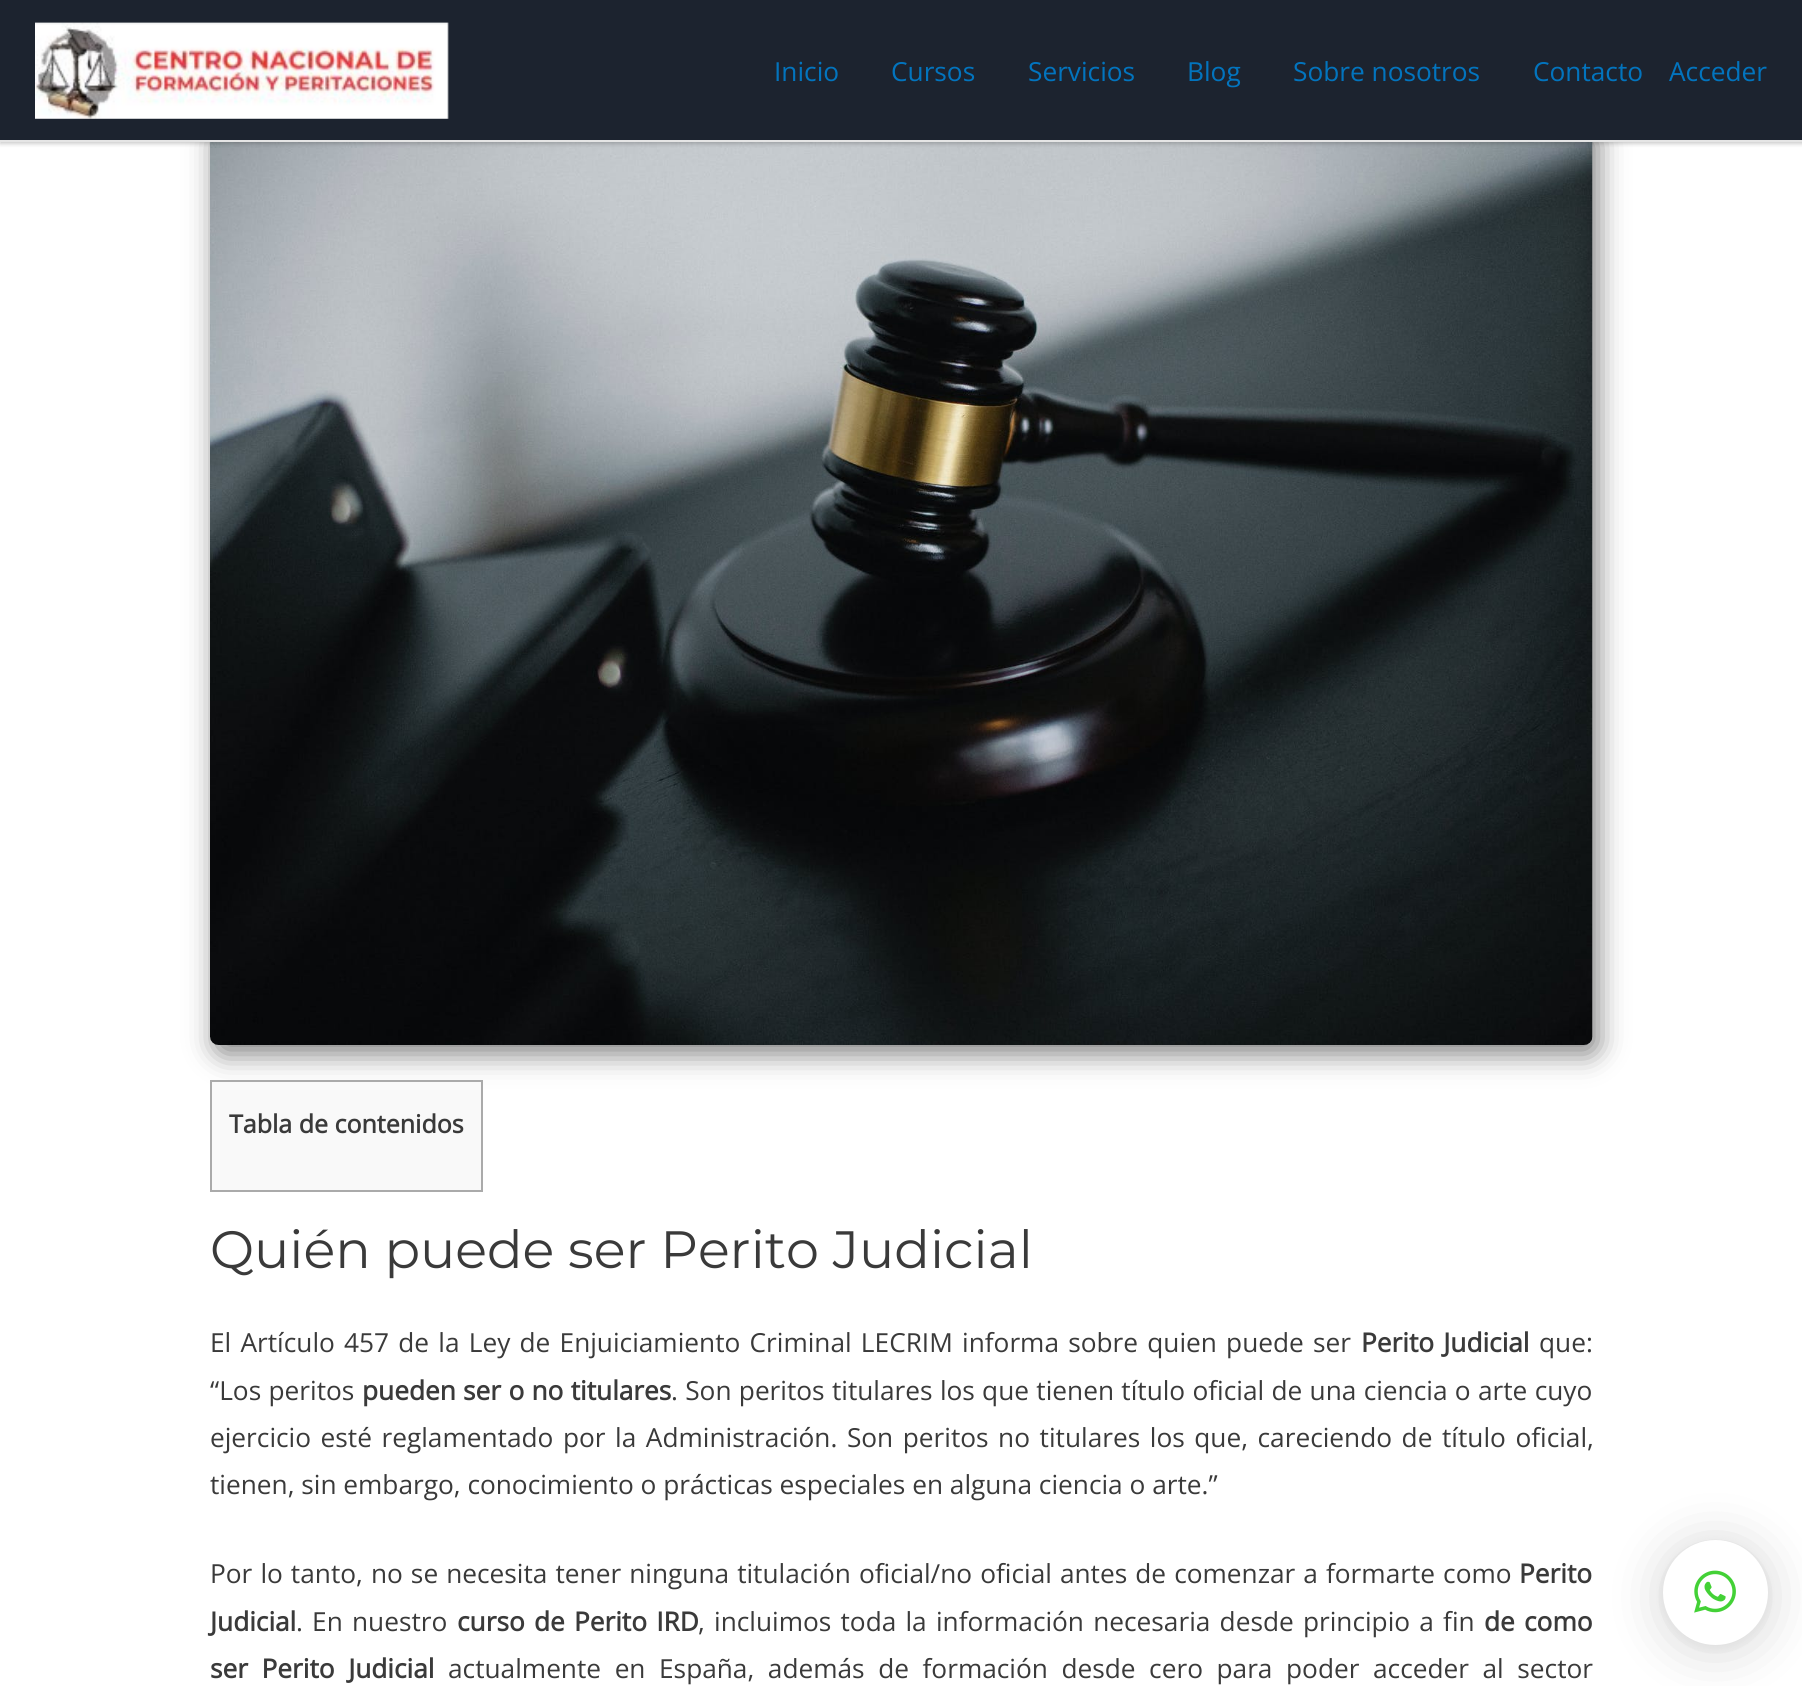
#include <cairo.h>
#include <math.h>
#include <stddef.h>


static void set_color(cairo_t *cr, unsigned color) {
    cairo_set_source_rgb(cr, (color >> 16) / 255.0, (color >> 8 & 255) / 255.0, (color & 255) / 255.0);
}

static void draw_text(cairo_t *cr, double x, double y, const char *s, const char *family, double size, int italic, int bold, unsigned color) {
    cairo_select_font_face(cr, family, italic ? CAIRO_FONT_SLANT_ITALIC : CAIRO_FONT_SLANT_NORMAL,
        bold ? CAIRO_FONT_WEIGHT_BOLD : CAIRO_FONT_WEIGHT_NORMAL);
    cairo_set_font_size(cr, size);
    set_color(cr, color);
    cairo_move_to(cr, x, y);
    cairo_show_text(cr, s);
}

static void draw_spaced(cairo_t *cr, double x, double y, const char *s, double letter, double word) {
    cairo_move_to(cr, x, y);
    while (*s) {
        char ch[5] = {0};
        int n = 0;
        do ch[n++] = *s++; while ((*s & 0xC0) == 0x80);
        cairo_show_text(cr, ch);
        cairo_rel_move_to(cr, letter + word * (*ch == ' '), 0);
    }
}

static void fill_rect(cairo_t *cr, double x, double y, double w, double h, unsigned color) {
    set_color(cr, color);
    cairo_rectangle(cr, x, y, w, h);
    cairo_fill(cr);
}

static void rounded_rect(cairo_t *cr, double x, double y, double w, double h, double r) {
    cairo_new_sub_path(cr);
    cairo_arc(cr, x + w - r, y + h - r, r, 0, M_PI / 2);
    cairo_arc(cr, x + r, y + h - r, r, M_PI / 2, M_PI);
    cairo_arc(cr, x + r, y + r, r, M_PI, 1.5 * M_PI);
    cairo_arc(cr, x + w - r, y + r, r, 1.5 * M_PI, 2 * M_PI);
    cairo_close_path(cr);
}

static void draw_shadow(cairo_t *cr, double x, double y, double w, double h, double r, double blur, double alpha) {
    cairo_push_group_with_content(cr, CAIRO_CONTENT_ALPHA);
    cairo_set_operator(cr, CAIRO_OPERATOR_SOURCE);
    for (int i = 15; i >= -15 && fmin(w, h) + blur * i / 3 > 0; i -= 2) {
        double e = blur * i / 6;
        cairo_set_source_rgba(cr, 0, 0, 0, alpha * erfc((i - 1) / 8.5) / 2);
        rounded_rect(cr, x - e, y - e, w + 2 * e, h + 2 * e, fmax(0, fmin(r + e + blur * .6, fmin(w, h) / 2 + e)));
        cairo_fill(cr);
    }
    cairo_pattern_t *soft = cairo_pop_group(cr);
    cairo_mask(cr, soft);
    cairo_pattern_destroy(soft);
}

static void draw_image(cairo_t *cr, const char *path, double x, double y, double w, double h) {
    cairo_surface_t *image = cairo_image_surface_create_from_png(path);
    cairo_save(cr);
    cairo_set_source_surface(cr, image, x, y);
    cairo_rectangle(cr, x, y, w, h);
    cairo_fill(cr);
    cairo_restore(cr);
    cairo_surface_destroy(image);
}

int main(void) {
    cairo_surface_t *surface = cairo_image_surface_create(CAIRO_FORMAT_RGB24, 1802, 1686);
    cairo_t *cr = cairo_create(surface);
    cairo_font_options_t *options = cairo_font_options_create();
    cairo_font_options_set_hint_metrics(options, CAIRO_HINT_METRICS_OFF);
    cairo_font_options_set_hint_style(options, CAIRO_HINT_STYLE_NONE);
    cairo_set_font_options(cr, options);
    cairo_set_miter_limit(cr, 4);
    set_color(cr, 0xFFFFFF);
    cairo_paint(cr);
    set_color(cr, 0x000000);
    draw_shadow(cr, 215, 133, 1383, 921, 9, 14, 0.5);
    draw_image(cr, "assets/img2.png", 210, 142, 1383, 903);
    draw_shadow(cr, 0, 2, 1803, 142, 0, 2, 0.2);
    fill_rect(cr, 0, 0, 1802, 140, 0x1C232F);
    fill_rect(cr, 0, 140, 1802, 2, 0xE5E5E5);
    draw_image(cr, "assets/img1.png", 35, 22, 414, 97);
    draw_text(cr, 774, 81, "Inicio", "Open Sans", 26.25, 0, 0, 0x0274BE);
    draw_text(cr, 891, 81, "Cursos", "Open Sans", 26.25, 0, 0, 0x0274BE);
    draw_text(cr, 1028, 81, "Servicios", "Open Sans", 26.25, 0, 0, 0x0274BE);
    draw_text(cr, 1187, 81, "Blog", "Open Sans", 26.25, 0, 0, 0x0274BE);
    draw_text(cr, 1293, 81, "Sobre nosotros", "Open Sans", 26.25, 0, 0, 0x0274BE);
    draw_text(cr, 1533, 81, "Contacto", "Open Sans", 26.25, 0, 0, 0x0274BE);
    draw_text(cr, 1669, 81, "Acceder", "Open Sans", 26.25, 0, 0, 0x0274BE);
    set_color(cr, 0xF9F9F9);
    cairo_rectangle(cr, 211, 1081, 271, 110);
    cairo_fill_preserve(cr);
    set_color(cr, 0xAAAAAA);
    cairo_stroke(cr);
    draw_text(cr, 229, 1133, "Tabla de contenidos", "Open Sans", 25, 0, 1, 0x3A3A3A);
    draw_text(cr, 210, 1268, "Quién puede ser Perito Judicial", "Montserrat Thin", 52.5, 0, 0, 0x3A3A3A);
    cairo_select_font_face(cr, "Open Sans", CAIRO_FONT_SLANT_NORMAL, CAIRO_FONT_WEIGHT_NORMAL);
    cairo_set_font_size(cr, 26.25);
    draw_spaced(cr, 210, 1352, "El Artículo 457 de la Ley de Enjuiciamiento Criminal LECRIM informa sobre quien puede ser", 0, 2.4);
    cairo_select_font_face(cr, "Open Sans", CAIRO_FONT_SLANT_NORMAL, CAIRO_FONT_WEIGHT_BOLD);
    draw_spaced(cr, 1361, 1352, "Perito Judicial", 0, 2.4);
    draw_text(cr, 1539, 1352, "que:", "Open Sans", 26.25, 0, 0, 0x3A3A3A);
    draw_spaced(cr, 210, 1400, "“Los peritos", 0, 0.5);
    cairo_select_font_face(cr, "Open Sans", CAIRO_FONT_SLANT_NORMAL, CAIRO_FONT_WEIGHT_BOLD);
    draw_spaced(cr, 362, 1400, "pueden ser o no titulares", 0, 0.5);
    cairo_select_font_face(cr, "Open Sans", CAIRO_FONT_SLANT_NORMAL, CAIRO_FONT_WEIGHT_NORMAL);
    draw_spaced(cr, 671, 1400, ". Son peritos titulares los que tienen título oficial de una ciencia o arte cuyo", 0, 0.5);
    draw_spaced(cr, 210, 1447, "ejercicio esté reglamentado por la Administración. Son peritos no titulares los que, careciendo de título oficial,", 0, 2.75);
    draw_text(cr, 210, 1494, "tienen, sin embargo, conocimiento o prácticas especiales en alguna ciencia o arte.”", "Open Sans", 26.25, 0, 0, 0x3A3A3A);
    draw_spaced(cr, 210, 1583, "Por lo tanto, no se necesita tener ninguna titulación oficial/no oficial antes de comenzar a formarte como", 0, 1.25);
    draw_text(cr, 1519, 1583, "Perito", "Open Sans", 26.25, 0, 1, 0x3A3A3A);
    draw_text(cr, 210, 1631, "Judicial", "Open Sans", 26.25, 0, 1, 0x3A3A3A);
    cairo_select_font_face(cr, "Open Sans", CAIRO_FONT_SLANT_NORMAL, CAIRO_FONT_WEIGHT_NORMAL);
    draw_spaced(cr, 296, 1631, ". En nuestro", 0, 2.4);
    cairo_select_font_face(cr, "Open Sans", CAIRO_FONT_SLANT_NORMAL, CAIRO_FONT_WEIGHT_BOLD);
    draw_spaced(cr, 457, 1631, "curso de Perito IRD", 0, 2.4);
    cairo_select_font_face(cr, "Open Sans", CAIRO_FONT_SLANT_NORMAL, CAIRO_FONT_WEIGHT_NORMAL);
    draw_spaced(cr, 698, 1631, ", incluimos toda la información necesaria desde principio a fin", 0, 2.4);
    cairo_select_font_face(cr, "Open Sans", CAIRO_FONT_SLANT_NORMAL, CAIRO_FONT_WEIGHT_BOLD);
    draw_spaced(cr, 1484, 1631, "de como", 0, 2.4);
    draw_spaced(cr, 210, 1678, "ser Perito Judicial", 0, 6.75);
    cairo_select_font_face(cr, "Open Sans", CAIRO_FONT_SLANT_NORMAL, CAIRO_FONT_WEIGHT_NORMAL);
    draw_spaced(cr, 448, 1678, "actualmente en España, además de formación desde cero para poder acceder al sector", 0, 6.75);
    set_color(cr, 0x000000);
    draw_shadow(cr, 1663, 1544, 105, 105, 52.5, 28, 0.16);
    draw_shadow(cr, 1663, 1542, 105, 105, 52.5, 5, 0.06);
    set_color(cr, 0xFFFFFF);
    cairo_arc(cr, 1715.5, 1592.5, 52.5, 0, 2 * M_PI);
    cairo_fill(cr);
    draw_image(cr, "assets/img3.png", 1694, 1570, 42, 43);
    cairo_surface_write_to_png(surface, "output.png");
    cairo_font_options_destroy(options);
    cairo_destroy(cr);
    cairo_surface_destroy(surface);
    return 0;
}
